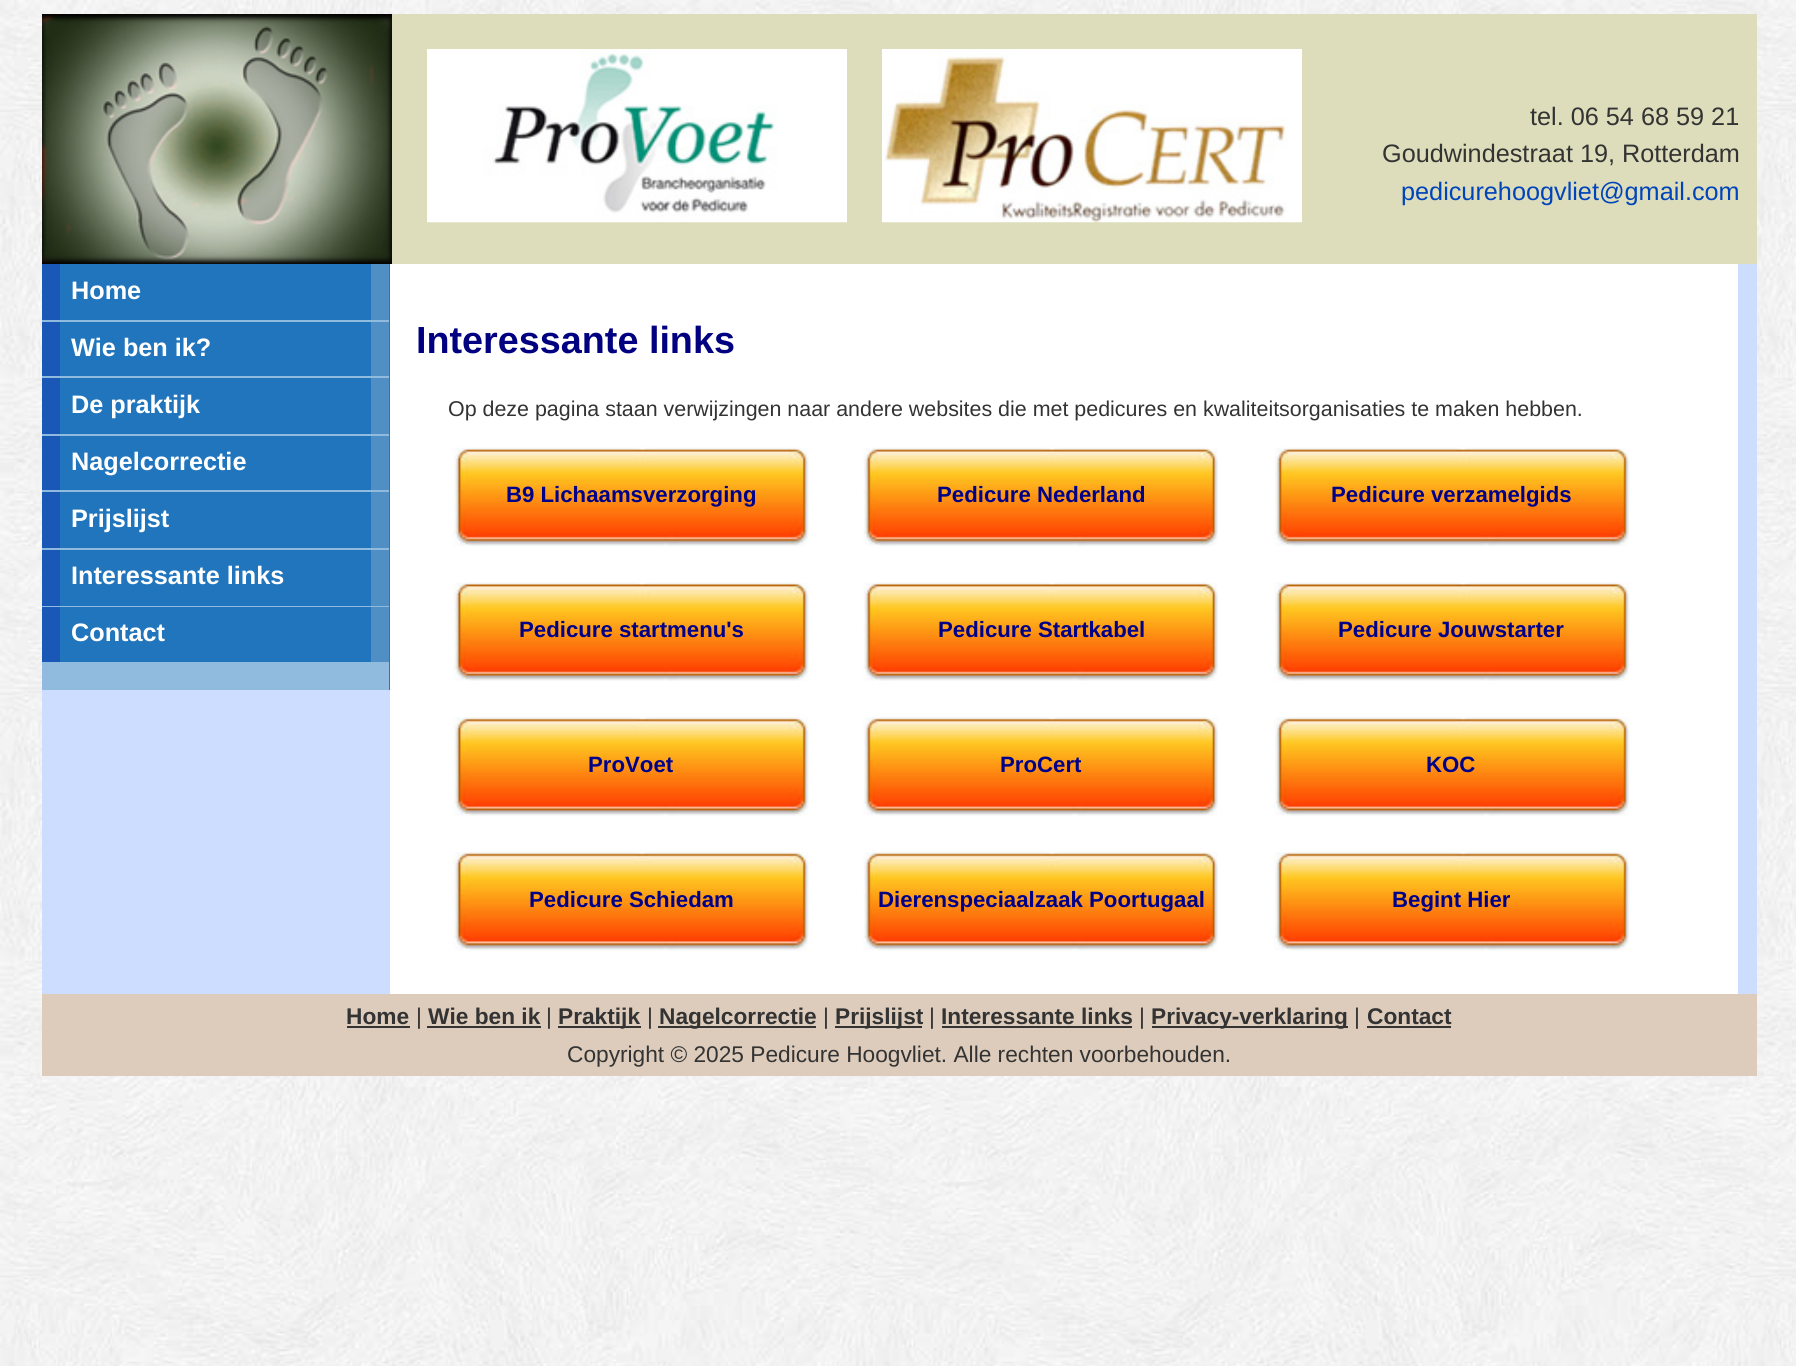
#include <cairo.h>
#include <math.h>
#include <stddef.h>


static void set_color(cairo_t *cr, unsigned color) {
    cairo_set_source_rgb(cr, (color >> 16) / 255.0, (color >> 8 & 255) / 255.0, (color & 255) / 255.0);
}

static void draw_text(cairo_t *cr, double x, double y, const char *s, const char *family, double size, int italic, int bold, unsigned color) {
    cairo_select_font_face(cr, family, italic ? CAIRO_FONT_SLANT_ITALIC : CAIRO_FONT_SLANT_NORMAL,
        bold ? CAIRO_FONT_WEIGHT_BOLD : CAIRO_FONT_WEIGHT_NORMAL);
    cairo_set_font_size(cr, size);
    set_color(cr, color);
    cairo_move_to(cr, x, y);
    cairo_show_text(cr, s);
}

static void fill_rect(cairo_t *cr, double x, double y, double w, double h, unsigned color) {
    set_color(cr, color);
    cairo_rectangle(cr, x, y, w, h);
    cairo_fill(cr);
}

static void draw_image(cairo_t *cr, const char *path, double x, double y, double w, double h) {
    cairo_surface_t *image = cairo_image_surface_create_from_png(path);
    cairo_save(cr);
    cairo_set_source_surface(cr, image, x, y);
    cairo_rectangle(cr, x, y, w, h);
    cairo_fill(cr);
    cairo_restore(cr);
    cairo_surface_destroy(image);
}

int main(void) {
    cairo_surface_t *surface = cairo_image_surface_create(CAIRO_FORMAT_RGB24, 1796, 1366);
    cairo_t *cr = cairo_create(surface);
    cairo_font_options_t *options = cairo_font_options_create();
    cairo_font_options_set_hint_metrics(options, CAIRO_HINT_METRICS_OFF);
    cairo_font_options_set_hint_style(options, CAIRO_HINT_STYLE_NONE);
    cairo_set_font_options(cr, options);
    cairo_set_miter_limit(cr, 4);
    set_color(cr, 0xFFFFFF);
    cairo_paint(cr);
    draw_image(cr, "assets/img1.png", 0, 0, 1796, 1366);
    fill_rect(cr, 42, 264, 1715, 730, 0xCCDDFF);
    fill_rect(cr, 392, 14, 1365, 250, 0xDDDDBB);
    draw_image(cr, "assets/img2.png", 42, 14, 350, 250);
    draw_image(cr, "assets/img3.png", 427, 49, 420, 174);
    draw_image(cr, "assets/img4.png", 882, 49, 420, 174);
    draw_text(cr, 1530, 125, "tel. 06 54 68 59 21", "Liberation Sans", 25.25, 0, 0, 0x333333);
    draw_text(cr, 1382, 162, "Goudwindestraat 19, Rotterdam", "Liberation Sans", 25.25, 0, 0, 0x333333);
    draw_text(cr, 1401, 200, "pedicurehoogvliet@gmail.com", "Liberation Sans", 25.25, 0, 0, 0x0044BB);
    fill_rect(cr, 42, 320, 347, 370, 0x90BADE);
    fill_rect(cr, 389, 264, 1, 426, 0x666666);
    fill_rect(cr, 60, 264, 311, 56, 0x2175BC);
    fill_rect(cr, 371, 264, 18, 56, 0x508FC4);
    fill_rect(cr, 42, 264, 18, 56, 0x1958B7);
    draw_text(cr, 71, 299, "Home", "Liberation Sans", 25.25, 0, 1, 0xFFFFFF);
    fill_rect(cr, 60, 322, 311, 54, 0x2175BC);
    fill_rect(cr, 371, 322, 18, 54, 0x508FC4);
    fill_rect(cr, 42, 322, 18, 54, 0x1958B7);
    draw_text(cr, 71, 356, "Wie ben ik?", "Liberation Sans", 25.25, 0, 1, 0xFFFFFF);
    fill_rect(cr, 60, 378, 311, 56, 0x2175BC);
    fill_rect(cr, 371, 378, 18, 56, 0x508FC4);
    fill_rect(cr, 42, 378, 18, 56, 0x1958B7);
    draw_text(cr, 71, 413, "De praktijk", "Liberation Sans", 25.25, 0, 1, 0xFFFFFF);
    fill_rect(cr, 60, 436, 311, 54, 0x2175BC);
    fill_rect(cr, 371, 436, 18, 54, 0x508FC4);
    fill_rect(cr, 42, 436, 18, 54, 0x1958B7);
    draw_text(cr, 71, 470, "Nagelcorrectie", "Liberation Sans", 25.25, 0, 1, 0xFFFFFF);
    fill_rect(cr, 60, 492, 311, 56, 0x2175BC);
    fill_rect(cr, 371, 492, 18, 56, 0x508FC4);
    fill_rect(cr, 42, 492, 18, 56, 0x1958B7);
    draw_text(cr, 71, 527, "Prijslijst", "Liberation Sans", 25.25, 0, 1, 0xFFFFFF);
    fill_rect(cr, 60, 550, 311, 56, 0x2175BC);
    fill_rect(cr, 371, 550, 18, 56, 0x508FC4);
    fill_rect(cr, 42, 550, 18, 56, 0x1958B7);
    draw_text(cr, 71, 584, "Interessante links", "Liberation Sans", 25.25, 0, 1, 0xFFFFFF);
    fill_rect(cr, 60, 607, 311, 55, 0x2175BC);
    fill_rect(cr, 371, 607, 18, 55, 0x508FC4);
    fill_rect(cr, 42, 607, 18, 55, 0x1958B7);
    draw_text(cr, 71, 641, "Contact", "Liberation Sans", 25.25, 0, 1, 0xFFFFFF);
    fill_rect(cr, 390, 264, 1348, 730, 0xFFFFFF);
    draw_text(cr, 416, 353, "Interessante links", "Liberation Sans", 37.75, 0, 1, 0x000080);
    draw_text(cr, 448, 416, "Op deze pagina staan verwijzingen naar andere websites die met pedicures en kwaliteitsorganisaties te maken hebben.", "Liberation Sans", 21.42, 0, 0, 0x333333);
    draw_image(cr, "assets/img5.png", 453, 447, 356, 100);
    draw_text(cr, 506, 502, "B9 Lichaamsverzorging", "Liberation Sans", 22.2, 0, 1, 0x000088);
    draw_image(cr, "assets/img6.png", 863, 447, 355, 100);
    draw_text(cr, 937, 502, "Pedicure Nederland", "Liberation Sans", 22.2, 0, 1, 0x000088);
    draw_image(cr, "assets/img7.png", 1274, 447, 356, 100);
    draw_text(cr, 1331, 502, "Pedicure verzamelgids", "Liberation Sans", 22.2, 0, 1, 0x000088);
    draw_image(cr, "assets/img8.png", 453, 582, 356, 99);
    draw_text(cr, 519, 637, "Pedicure startmenu's", "Liberation Sans", 22.2, 0, 1, 0x000088);
    draw_image(cr, "assets/img9.png", 863, 582, 355, 99);
    draw_text(cr, 938, 637, "Pedicure Startkabel", "Liberation Sans", 22.2, 0, 1, 0x000088);
    draw_image(cr, "assets/img10.png", 1274, 582, 356, 99);
    draw_text(cr, 1338, 637, "Pedicure Jouwstarter", "Liberation Sans", 22.2, 0, 1, 0x000088);
    draw_image(cr, "assets/img11.png", 453, 717, 356, 99);
    draw_text(cr, 588, 772, "ProVoet", "Liberation Sans", 22.2, 0, 1, 0x000088);
    draw_image(cr, "assets/img12.png", 863, 717, 355, 99);
    draw_text(cr, 1000, 772, "ProCert", "Liberation Sans", 22.2, 0, 1, 0x000088);
    draw_image(cr, "assets/img13.png", 1274, 717, 356, 99);
    draw_text(cr, 1426, 772, "KOC", "Liberation Sans", 22.2, 0, 1, 0x000088);
    draw_image(cr, "assets/img14.png", 453, 852, 356, 99);
    draw_text(cr, 529, 907, "Pedicure Schiedam", "Liberation Sans", 22.2, 0, 1, 0x000088);
    draw_image(cr, "assets/img15.png", 863, 852, 355, 99);
    draw_text(cr, 878, 907, "Dierenspeciaalzaak Poortugaal", "Liberation Sans", 22.2, 0, 1, 0x000088);
    draw_image(cr, "assets/img16.png", 1274, 852, 356, 99);
    draw_text(cr, 1392, 907, "Begint Hier", "Liberation Sans", 22.2, 0, 1, 0x000088);
    fill_rect(cr, 42, 994, 1715, 82, 0xDDCCBB);
    draw_text(cr, 346, 1024, "Home", "Liberation Sans", 22.7, 0, 1, 0x333333);
    fill_rect(cr, 347, 1026, 63, 2, 0x333333);
    draw_text(cr, 416, 1024, "|", "Liberation Sans", 22.7, 0, 0, 0x333333);
    draw_text(cr, 428, 1024, "Wie ben ik", "Liberation Sans", 22.7, 0, 1, 0x333333);
    fill_rect(cr, 427, 1026, 114, 2, 0x333333);
    draw_text(cr, 546, 1024, "|", "Liberation Sans", 22.7, 0, 0, 0x333333);
    fill_rect(cr, 558, 1026, 83, 2, 0x333333);
    draw_text(cr, 558, 1024, "Praktijk", "Liberation Sans", 22.7, 0, 1, 0x333333);
    draw_text(cr, 647, 1024, "|", "Liberation Sans", 22.7, 0, 0, 0x333333);
    fill_rect(cr, 658, 1026, 158, 2, 0x333333);
    draw_text(cr, 659, 1024, "Nagelcorrectie", "Liberation Sans", 22.7, 0, 1, 0x333333);
    draw_text(cr, 823, 1024, "|", "Liberation Sans", 22.7, 0, 0, 0x333333);
    fill_rect(cr, 835, 1026, 87, 2, 0x333333);
    draw_text(cr, 835, 1024, "Prijslijst", "Liberation Sans", 22.7, 0, 1, 0x333333);
    draw_text(cr, 929, 1024, "|", "Liberation Sans", 22.7, 0, 0, 0x333333);
    draw_text(cr, 941, 1024, "Interessante links", "Liberation Sans", 22.7, 0, 1, 0x333333);
    fill_rect(cr, 942, 1026, 190, 2, 0x333333);
    draw_text(cr, 1139, 1024, "|", "Liberation Sans", 22.7, 0, 0, 0x333333);
    fill_rect(cr, 1152, 1026, 196, 2, 0x333333);
    draw_text(cr, 1151, 1024, "Privacy-verklaring", "Liberation Sans", 22.7, 0, 1, 0x333333);
    draw_text(cr, 1354, 1024, "|", "Liberation Sans", 22.7, 0, 0, 0x333333);
    draw_text(cr, 1367, 1024, "Contact", "Liberation Sans", 22.7, 0, 1, 0x333333);
    fill_rect(cr, 1367, 1026, 84, 2, 0x333333);
    draw_text(cr, 567, 1062, "Copyright © 2025 Pedicure Hoogvliet. Alle rechten voorbehouden.", "Liberation Sans", 22.7, 0, 0, 0x333333);
    cairo_surface_write_to_png(surface, "output.png");
    cairo_font_options_destroy(options);
    cairo_destroy(cr);
    cairo_surface_destroy(surface);
    return 0;
}
